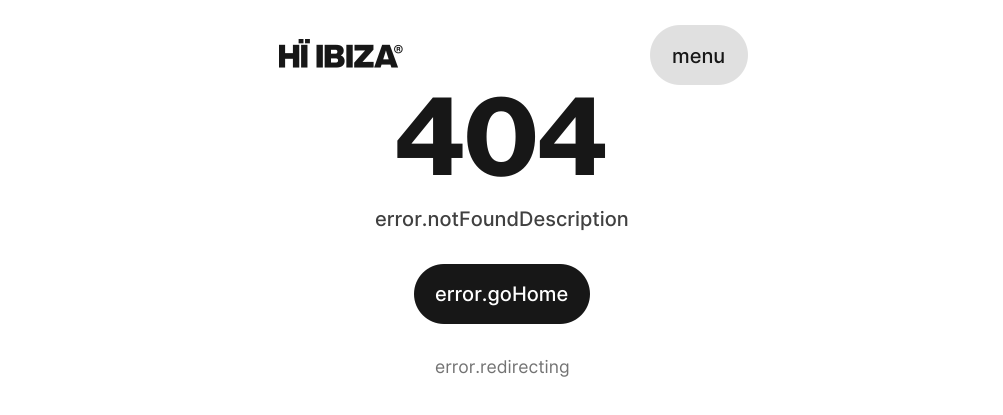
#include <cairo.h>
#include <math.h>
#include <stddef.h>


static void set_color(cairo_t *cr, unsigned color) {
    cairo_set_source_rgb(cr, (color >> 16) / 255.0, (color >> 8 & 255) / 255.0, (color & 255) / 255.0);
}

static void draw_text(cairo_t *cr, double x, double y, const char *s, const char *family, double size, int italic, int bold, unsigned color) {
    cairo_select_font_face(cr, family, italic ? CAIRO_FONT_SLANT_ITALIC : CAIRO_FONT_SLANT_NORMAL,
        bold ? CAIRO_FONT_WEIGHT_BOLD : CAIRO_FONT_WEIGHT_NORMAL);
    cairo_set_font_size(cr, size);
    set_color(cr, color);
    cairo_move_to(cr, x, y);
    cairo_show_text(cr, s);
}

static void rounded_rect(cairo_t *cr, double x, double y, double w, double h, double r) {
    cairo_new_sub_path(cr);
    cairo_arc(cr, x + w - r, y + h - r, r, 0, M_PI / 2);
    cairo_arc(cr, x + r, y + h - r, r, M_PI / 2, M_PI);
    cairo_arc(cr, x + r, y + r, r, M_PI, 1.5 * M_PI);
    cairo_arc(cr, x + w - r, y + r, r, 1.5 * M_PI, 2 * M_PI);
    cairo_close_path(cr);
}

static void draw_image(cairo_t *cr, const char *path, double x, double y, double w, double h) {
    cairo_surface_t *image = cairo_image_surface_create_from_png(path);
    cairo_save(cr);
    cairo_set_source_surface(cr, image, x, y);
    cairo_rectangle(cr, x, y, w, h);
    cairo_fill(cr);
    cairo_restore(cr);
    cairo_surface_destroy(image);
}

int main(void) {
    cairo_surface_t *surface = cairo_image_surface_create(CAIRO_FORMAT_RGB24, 1003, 415);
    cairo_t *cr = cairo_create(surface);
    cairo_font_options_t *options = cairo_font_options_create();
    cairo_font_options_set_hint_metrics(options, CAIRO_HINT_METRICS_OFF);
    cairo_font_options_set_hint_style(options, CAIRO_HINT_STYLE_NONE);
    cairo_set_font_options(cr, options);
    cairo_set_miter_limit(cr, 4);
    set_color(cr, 0xFFFFFF);
    cairo_paint(cr);
    draw_image(cr, "assets/img1.png", 279, 39, 124, 29);
    set_color(cr, 0xE0E0E0);
    rounded_rect(cr, 650, 25, 98, 60, 30);
    cairo_fill(cr);
    draw_text(cr, 672, 63, "menu", "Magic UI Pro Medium", 20, 0, 0, 0x171717);
    draw_text(cr, 395, 175, "404", "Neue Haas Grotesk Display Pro", 112, 0, 1, 0x171717);
    draw_text(cr, 375, 226, "error.notFoundDescription", "Magic UI Pro Medium", 20, 0, 0, 0x404040);
    set_color(cr, 0x171717);
    rounded_rect(cr, 414, 264, 176, 60, 30);
    cairo_fill(cr);
    draw_text(cr, 435, 301, "error.goHome", "Magic UI Pro Medium", 20, 0, 0, 0xFFFFFF);
    draw_text(cr, 435, 373, "error.redirecting", "Magic UI Pro", 17.5, 0, 0, 0x737373);
    cairo_surface_write_to_png(surface, "output.png");
    cairo_font_options_destroy(options);
    cairo_destroy(cr);
    cairo_surface_destroy(surface);
    return 0;
}
